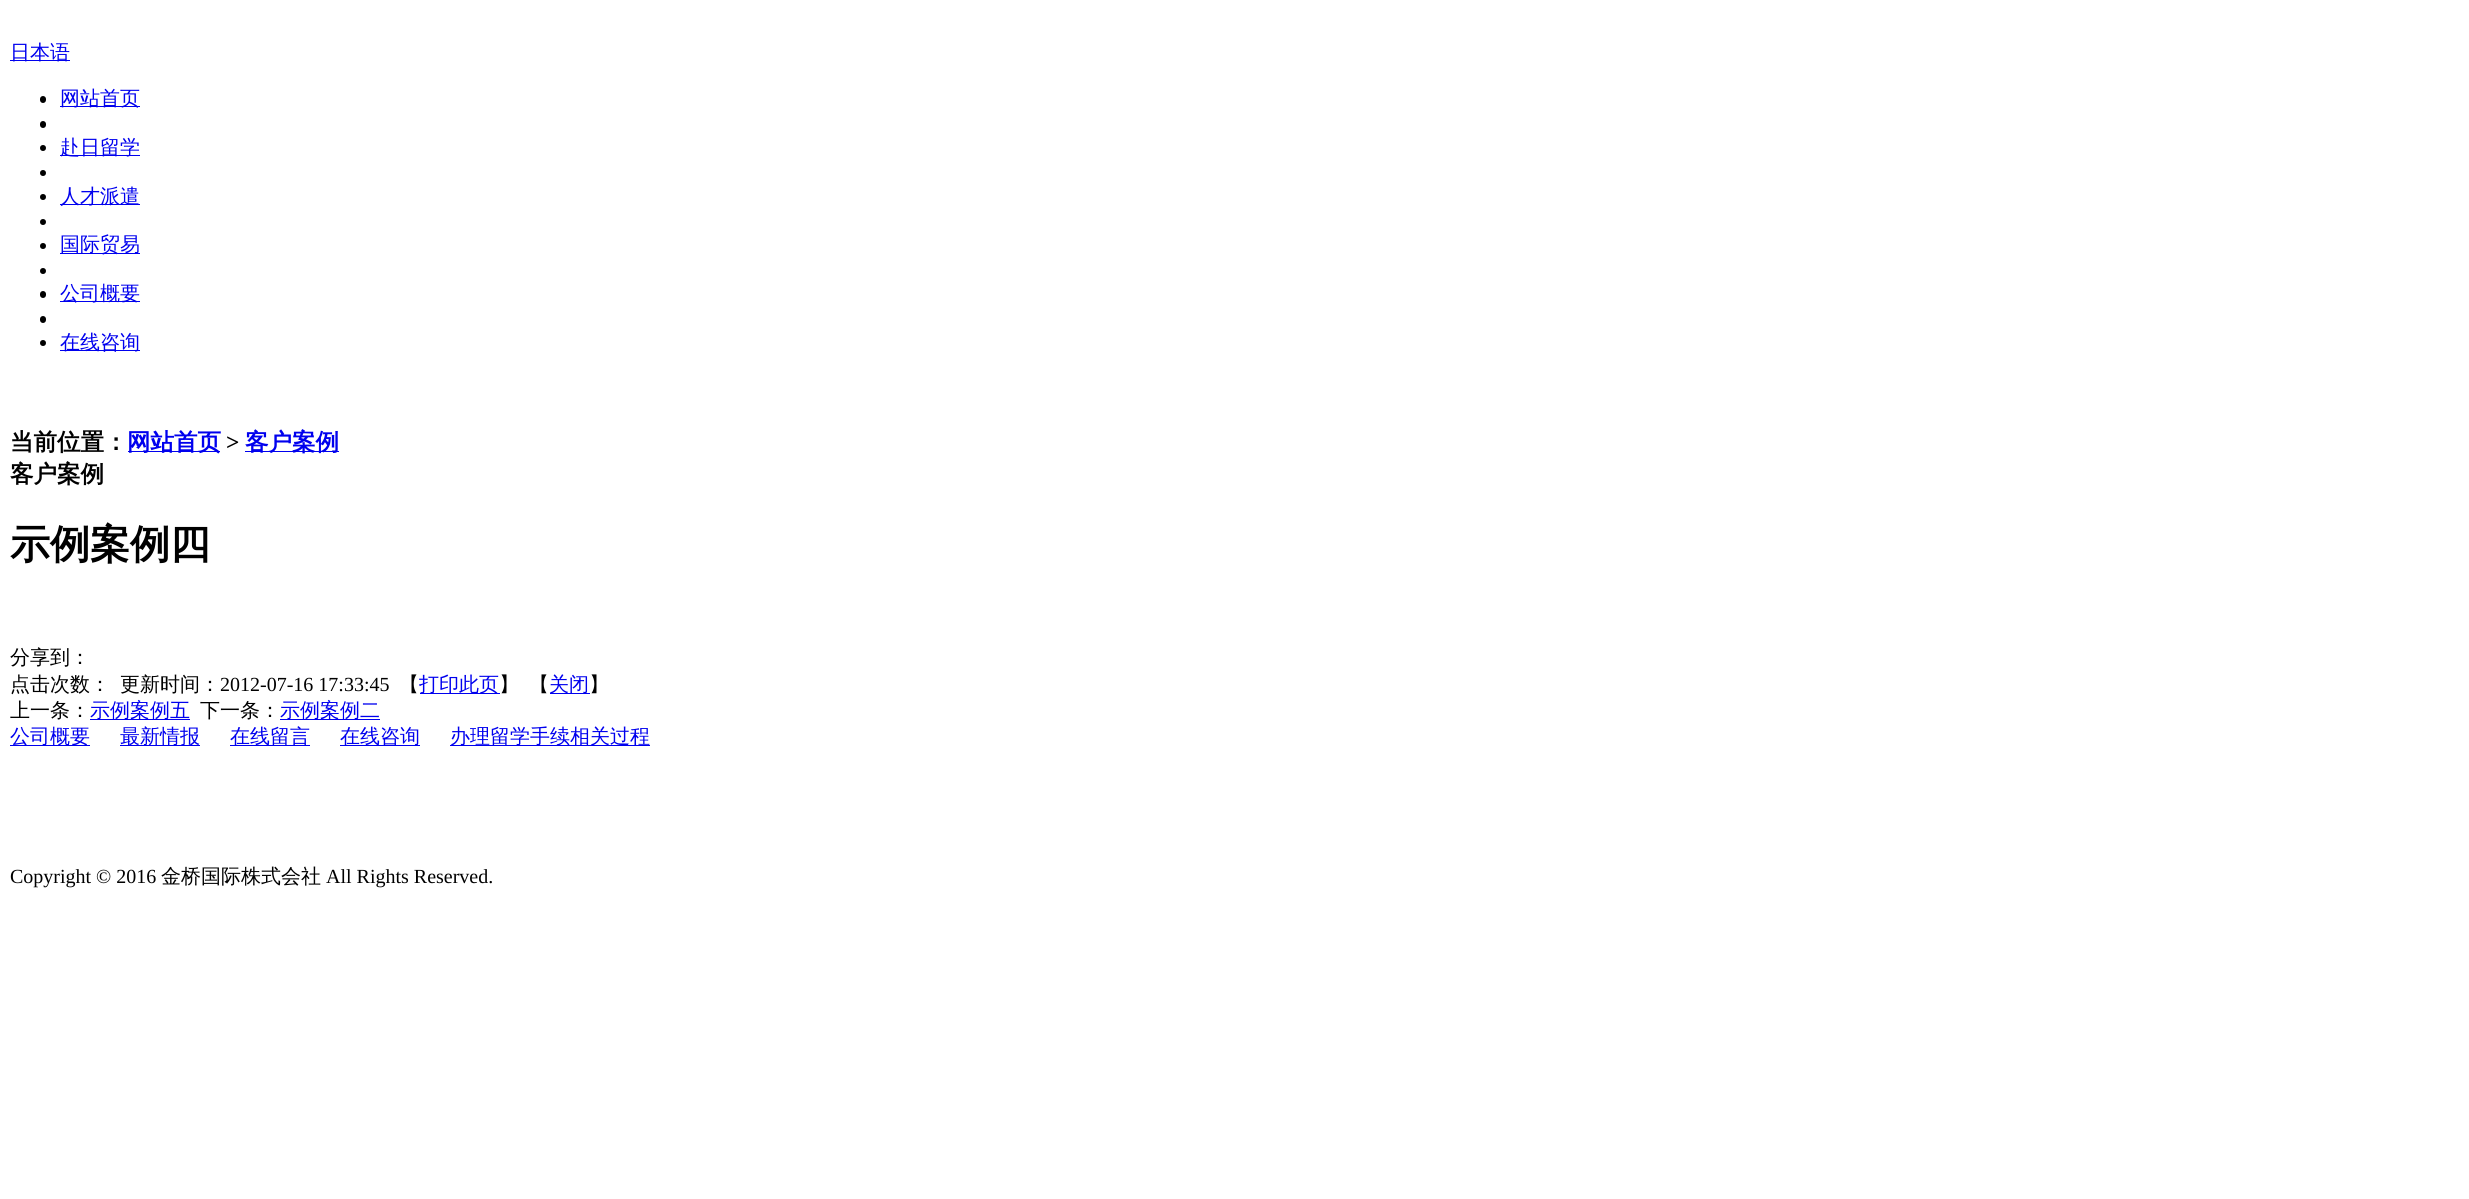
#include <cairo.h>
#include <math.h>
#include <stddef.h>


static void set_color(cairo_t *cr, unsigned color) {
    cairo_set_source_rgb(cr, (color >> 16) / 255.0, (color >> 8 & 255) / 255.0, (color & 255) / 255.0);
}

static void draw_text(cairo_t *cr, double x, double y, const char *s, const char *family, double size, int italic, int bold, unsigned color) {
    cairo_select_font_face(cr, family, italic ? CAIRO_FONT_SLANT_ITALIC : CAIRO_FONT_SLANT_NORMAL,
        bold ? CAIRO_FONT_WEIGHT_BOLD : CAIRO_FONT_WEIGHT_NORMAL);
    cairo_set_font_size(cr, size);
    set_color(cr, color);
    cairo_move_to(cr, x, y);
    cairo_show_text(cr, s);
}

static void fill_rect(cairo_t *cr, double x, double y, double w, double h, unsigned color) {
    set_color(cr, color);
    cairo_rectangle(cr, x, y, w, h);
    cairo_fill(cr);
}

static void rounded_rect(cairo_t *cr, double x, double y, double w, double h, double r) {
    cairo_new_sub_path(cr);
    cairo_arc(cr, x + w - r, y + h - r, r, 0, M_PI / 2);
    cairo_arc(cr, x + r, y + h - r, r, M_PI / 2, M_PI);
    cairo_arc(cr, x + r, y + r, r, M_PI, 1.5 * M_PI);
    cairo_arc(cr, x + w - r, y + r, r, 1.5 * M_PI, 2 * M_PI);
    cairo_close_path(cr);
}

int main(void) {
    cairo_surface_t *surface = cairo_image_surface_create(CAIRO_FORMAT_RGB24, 2469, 1199);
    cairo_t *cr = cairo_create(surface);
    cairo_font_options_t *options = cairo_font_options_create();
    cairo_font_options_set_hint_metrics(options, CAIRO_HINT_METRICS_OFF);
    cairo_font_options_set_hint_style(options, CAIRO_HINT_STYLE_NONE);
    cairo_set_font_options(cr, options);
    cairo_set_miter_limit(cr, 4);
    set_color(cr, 0xFFFFFF);
    cairo_paint(cr);
    fill_rect(cr, 10, 60, 60, 1, 0x0000EE);
    draw_text(cr, 10, 59, "日本语", "WenQuanYi Zen Hei Medium", 20, 0, 0, 0x0000EE);
    set_color(cr, 0x000000);
    rounded_rect(cr, 40, 96, 6, 7, 3);
    cairo_fill(cr);
    fill_rect(cr, 60, 106, 80, 1, 0x0000EE);
    draw_text(cr, 60, 105, "网站首页", "WenQuanYi Zen Hei Medium", 20, 0, 0, 0x0000EE);
    set_color(cr, 0x000000);
    rounded_rect(cr, 40, 121, 6, 7, 3);
    cairo_fill(cr);
    cairo_arc(cr, 43, 148, 3, 0, 2 * M_PI);
    cairo_fill(cr);
    fill_rect(cr, 60, 155, 80, 1, 0x0000EE);
    draw_text(cr, 60, 154, "赴日留学", "WenQuanYi Zen Hei Medium", 20, 0, 0, 0x0000EE);
    set_color(cr, 0x000000);
    cairo_new_path(cr);
    cairo_arc(cr, 43, 173, 3, 0, 2 * M_PI);
    cairo_fill(cr);
    cairo_arc(cr, 43, 197, 3, 0, 2 * M_PI);
    cairo_fill(cr);
    fill_rect(cr, 60, 204, 80, 1, 0x0000EE);
    draw_text(cr, 60, 203, "人才派遣", "WenQuanYi Zen Hei Medium", 20, 0, 0, 0x0000EE);
    set_color(cr, 0x000000);
    cairo_new_path(cr);
    cairo_arc(cr, 43, 222, 3, 0, 2 * M_PI);
    cairo_fill(cr);
    cairo_arc(cr, 43, 246, 3, 0, 2 * M_PI);
    cairo_fill(cr);
    fill_rect(cr, 60, 253, 80, 1, 0x0000EE);
    draw_text(cr, 60, 251, "国际贸易", "WenQuanYi Zen Hei Medium", 20, 0, 0, 0x0000EE);
    set_color(cr, 0x000000);
    cairo_new_path(cr);
    cairo_arc(cr, 43, 271, 3, 0, 2 * M_PI);
    cairo_fill(cr);
    rounded_rect(cr, 40, 291, 6, 7, 3);
    cairo_fill(cr);
    fill_rect(cr, 60, 301, 80, 1, 0x0000EE);
    draw_text(cr, 60, 300, "公司概要", "WenQuanYi Zen Hei Medium", 20, 0, 0, 0x0000EE);
    set_color(cr, 0x000000);
    rounded_rect(cr, 40, 316, 6, 7, 3);
    cairo_fill(cr);
    cairo_arc(cr, 43, 343, 3, 0, 2 * M_PI);
    cairo_fill(cr);
    fill_rect(cr, 60, 350, 80, 1, 0x0000EE);
    draw_text(cr, 60, 349, "在线咨询", "WenQuanYi Zen Hei Medium", 20, 0, 0, 0x0000EE);
    draw_text(cr, 10, 450, "当前位置：", "WenQuanYi Zen Hei", 23.5, 0, 1, 0x000000);
    fill_rect(cr, 128, 451, 92, 1, 0x0000EE);
    draw_text(cr, 127, 450, "网站首页", "WenQuanYi Zen Hei", 23.5, 0, 1, 0x0000EE);
    draw_text(cr, 226, 450, ">", "Liberation Serif", 23.5, 0, 1, 0x000000);
    fill_rect(cr, 245, 451, 94, 1, 0x0000EE);
    draw_text(cr, 245, 450, "客户案例", "WenQuanYi Zen Hei", 23.5, 0, 1, 0x0000EE);
    draw_text(cr, 10, 482, "客户案例", "WenQuanYi Zen Hei", 23.5, 0, 1, 0x000000);
    draw_text(cr, 10, 558, "示例案例四", "WenQuanYi Zen Hei", 40, 0, 1, 0x000000);
    draw_text(cr, 10, 664, "分享到：", "WenQuanYi Zen Hei Medium", 20, 0, 0, 0x000000);
    draw_text(cr, 10, 691, "点击次数：", "WenQuanYi Zen Hei Medium", 20, 0, 0, 0x000000);
    draw_text(cr, 120, 691, "更新时间：", "WenQuanYi Zen Hei Medium", 20, 0, 0, 0x000000);
    draw_text(cr, 220, 691, "2012-07-16 17:33:45", "Liberation Serif", 20, 0, 0, 0x000000);
    draw_text(cr, 399, 691, "【", "WenQuanYi Zen Hei Medium", 20, 0, 0, 0x000000);
    fill_rect(cr, 420, 693, 80, 1, 0x0000EE);
    draw_text(cr, 419, 691, "打印此页", "WenQuanYi Zen Hei Medium", 20, 0, 0, 0x0000EE);
    draw_text(cr, 499, 691, "】", "WenQuanYi Zen Hei Medium", 20, 0, 0, 0x000000);
    draw_text(cr, 529, 691, "【", "WenQuanYi Zen Hei Medium", 20, 0, 0, 0x000000);
    fill_rect(cr, 550, 693, 40, 1, 0x0000EE);
    draw_text(cr, 549, 691, "关闭", "WenQuanYi Zen Hei Medium", 20, 0, 0, 0x0000EE);
    draw_text(cr, 589, 691, "】", "WenQuanYi Zen Hei Medium", 20, 0, 0, 0x000000);
    draw_text(cr, 10, 717, "上一条：", "WenQuanYi Zen Hei Medium", 20, 0, 0, 0x000000);
    fill_rect(cr, 90, 719, 100, 1, 0x0000EE);
    draw_text(cr, 90, 717, "示例案例五", "WenQuanYi Zen Hei Medium", 20, 0, 0, 0x0000EE);
    draw_text(cr, 200, 717, "下一条：", "WenQuanYi Zen Hei Medium", 20, 0, 0, 0x000000);
    fill_rect(cr, 280, 719, 100, 1, 0x0000EE);
    draw_text(cr, 280, 717, "示例案例二", "WenQuanYi Zen Hei Medium", 20, 0, 0, 0x0000EE);
    fill_rect(cr, 10, 745, 80, 1, 0x0000EE);
    draw_text(cr, 10, 743, "公司概要", "WenQuanYi Zen Hei Medium", 20, 0, 0, 0x0000EE);
    fill_rect(cr, 120, 745, 80, 1, 0x0000EE);
    draw_text(cr, 120, 743, "最新情报", "WenQuanYi Zen Hei Medium", 20, 0, 0, 0x0000EE);
    fill_rect(cr, 230, 745, 80, 1, 0x0000EE);
    draw_text(cr, 230, 743, "在线留言", "WenQuanYi Zen Hei Medium", 20, 0, 0, 0x0000EE);
    fill_rect(cr, 340, 745, 80, 1, 0x0000EE);
    draw_text(cr, 340, 743, "在线咨询", "WenQuanYi Zen Hei Medium", 20, 0, 0, 0x0000EE);
    fill_rect(cr, 450, 745, 200, 1, 0x0000EE);
    draw_text(cr, 450, 743, "办理留学手续相关过程", "WenQuanYi Zen Hei Medium", 20, 0, 0, 0x0000EE);
    draw_text(cr, 10, 883, "Copyright © 2016", "Liberation Serif", 20, 0, 0, 0x000000);
    draw_text(cr, 161, 883, "金桥国际株式会社", "WenQuanYi Zen Hei Medium", 20, 0, 0, 0x000000);
    draw_text(cr, 326, 883, "All Rights Reserved.", "Liberation Serif", 20, 0, 0, 0x000000);
    cairo_surface_write_to_png(surface, "output.png");
    cairo_font_options_destroy(options);
    cairo_destroy(cr);
    cairo_surface_destroy(surface);
    return 0;
}
